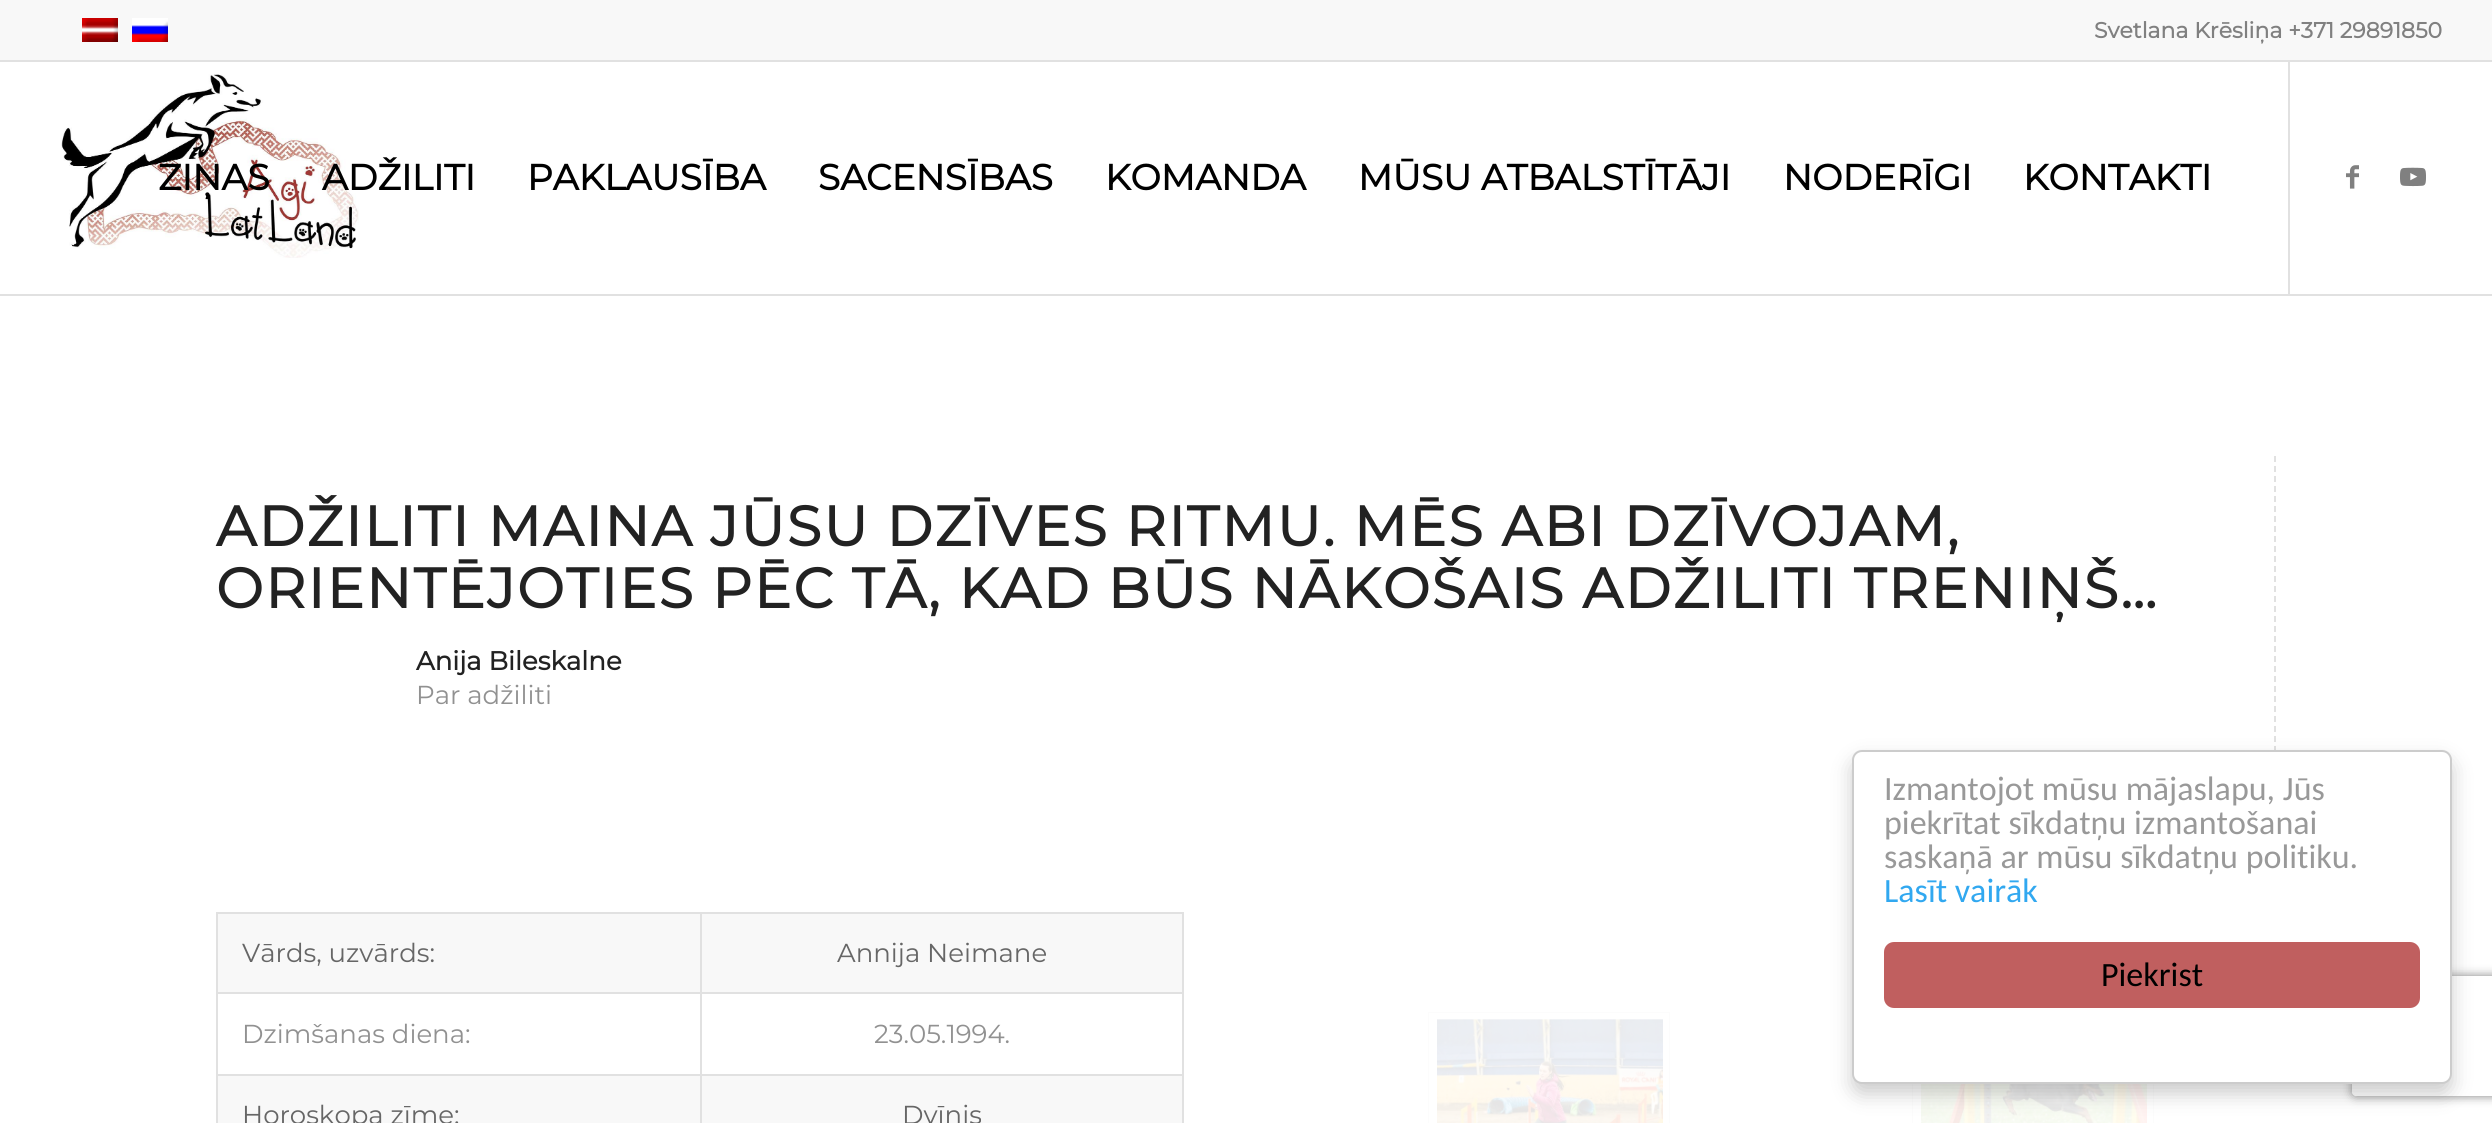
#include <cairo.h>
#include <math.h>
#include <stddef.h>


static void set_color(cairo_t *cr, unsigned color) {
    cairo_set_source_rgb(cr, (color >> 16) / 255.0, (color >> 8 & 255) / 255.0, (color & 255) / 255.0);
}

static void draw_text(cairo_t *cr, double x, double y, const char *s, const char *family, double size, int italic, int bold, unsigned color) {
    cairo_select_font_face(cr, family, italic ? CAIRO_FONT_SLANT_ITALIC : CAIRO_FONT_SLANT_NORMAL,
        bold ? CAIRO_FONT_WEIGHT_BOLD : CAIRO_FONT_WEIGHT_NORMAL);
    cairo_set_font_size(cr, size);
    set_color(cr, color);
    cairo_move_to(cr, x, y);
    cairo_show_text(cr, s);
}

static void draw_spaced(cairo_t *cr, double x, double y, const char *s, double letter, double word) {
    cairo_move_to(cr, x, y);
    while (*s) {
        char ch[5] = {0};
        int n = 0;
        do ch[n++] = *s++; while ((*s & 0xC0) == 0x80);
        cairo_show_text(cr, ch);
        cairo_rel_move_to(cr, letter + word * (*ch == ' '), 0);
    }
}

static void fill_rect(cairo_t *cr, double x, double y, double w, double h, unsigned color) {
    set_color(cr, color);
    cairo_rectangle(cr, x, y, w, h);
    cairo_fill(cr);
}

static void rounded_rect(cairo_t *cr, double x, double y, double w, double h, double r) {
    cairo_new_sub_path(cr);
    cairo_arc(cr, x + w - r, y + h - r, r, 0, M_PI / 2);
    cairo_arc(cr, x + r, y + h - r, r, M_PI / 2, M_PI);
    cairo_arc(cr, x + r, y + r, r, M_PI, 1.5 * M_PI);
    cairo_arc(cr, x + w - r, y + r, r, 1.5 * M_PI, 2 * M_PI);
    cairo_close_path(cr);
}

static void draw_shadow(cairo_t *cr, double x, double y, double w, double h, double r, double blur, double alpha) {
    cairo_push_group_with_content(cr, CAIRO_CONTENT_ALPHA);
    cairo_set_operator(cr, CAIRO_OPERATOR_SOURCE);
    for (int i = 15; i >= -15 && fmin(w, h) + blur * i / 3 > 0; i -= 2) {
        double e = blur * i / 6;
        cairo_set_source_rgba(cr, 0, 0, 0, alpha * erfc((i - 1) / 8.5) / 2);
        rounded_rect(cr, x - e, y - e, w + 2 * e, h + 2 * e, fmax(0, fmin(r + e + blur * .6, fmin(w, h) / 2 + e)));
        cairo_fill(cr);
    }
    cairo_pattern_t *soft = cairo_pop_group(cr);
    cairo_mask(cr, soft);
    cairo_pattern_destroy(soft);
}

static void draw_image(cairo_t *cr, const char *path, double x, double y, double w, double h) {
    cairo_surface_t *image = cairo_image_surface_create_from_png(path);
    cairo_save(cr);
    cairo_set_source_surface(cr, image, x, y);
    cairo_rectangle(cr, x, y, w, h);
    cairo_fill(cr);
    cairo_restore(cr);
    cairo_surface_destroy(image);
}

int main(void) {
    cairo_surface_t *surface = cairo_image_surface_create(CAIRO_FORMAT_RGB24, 2492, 1123);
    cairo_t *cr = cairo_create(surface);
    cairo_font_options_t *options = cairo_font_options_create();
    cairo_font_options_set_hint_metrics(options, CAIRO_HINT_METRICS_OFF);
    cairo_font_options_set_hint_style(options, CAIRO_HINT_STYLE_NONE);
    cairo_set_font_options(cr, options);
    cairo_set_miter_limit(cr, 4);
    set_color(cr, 0xFFFFFF);
    cairo_paint(cr);
    fill_rect(cr, 0, 0, 2492, 60, 0xF8F8F8);
    fill_rect(cr, 0, 60, 2492, 2, 0xE1E1E1);
    draw_image(cr, "assets/img1.png", 82, 18, 36, 24);
    draw_image(cr, "assets/img2.png", 132, 18, 36, 24);
    draw_text(cr, 2094, 38, "Svetlana Krēsliņa +371 29891850", "Montserrat", 22, 0, 1, 0x808080);
    fill_rect(cr, 0, 294, 2492, 2, 0xE1E1E1);
    draw_image(cr, "assets/img3.png", 61, 74, 298, 184);
    fill_rect(cr, 2288, 62, 2, 232, 0xE1E1E1);
    draw_text(cr, 158, 190, "ZIŅAS", "Montserrat", 36, 0, 1, 0x000000);
    draw_text(cr, 322, 190, "ADŽILITI", "Montserrat", 36, 0, 1, 0x000000);
    draw_text(cr, 527, 190, "PAKLAUSĪBA", "Montserrat", 36, 0, 1, 0x000000);
    draw_text(cr, 818, 190, "SACENSĪBAS", "Montserrat", 36, 0, 1, 0x000000);
    draw_text(cr, 1105, 190, "KOMANDA", "Montserrat", 36, 0, 1, 0x000000);
    draw_text(cr, 1358, 190, "MŪSU ATBALSTĪTĀJI", "Montserrat", 36, 0, 1, 0x000000);
    draw_text(cr, 1783, 190, "NODERĪGI", "Montserrat", 36, 0, 1, 0x000000);
    draw_text(cr, 2023, 190, "KONTAKTI", "Montserrat", 36, 0, 1, 0x000000);
    draw_image(cr, "assets/img4.png", 2346, 165, 13, 24);
    draw_image(cr, "assets/img5.png", 2400, 167, 26, 20);
    cairo_new_path(cr);
    cairo_move_to(cr, 2275, 456);
    cairo_line_to(cr, 2275, 752);
    set_color(cr, 0xE1E1E1);
    cairo_set_dash(cr, (double[]){6, 4}, 2, 0);
    cairo_stroke(cr);
    cairo_set_font_size(cr, 56);
    set_color(cr, 0x222222);
    draw_spaced(cr, 216, 546, "ADŽILITI MAINA JŪSU DZĪVES RITMU. MĒS ABI DZĪVOJAM,", 2, 0);
    draw_spaced(cr, 216, 608, "ORIENTĒJOTIES PĒC TĀ, KAD BŪS NĀKOŠAIS ADŽILITI TRENIŅŠ…", 2, 0);
    draw_text(cr, 416, 670, "Anija Bileskalne", "Montserrat", 26, 0, 1, 0x222222);
    draw_text(cr, 416, 704, "Par adžiliti", "Montserrat Thin", 26, 0, 0, 0x919191);
    fill_rect(cr, 218, 914, 964, 209, 0xF8F8F8);
    fill_rect(cr, 216, 912, 968, 2, 0xE1E1E1);
    fill_rect(cr, 1182, 992, 2, 131, 0xE1E1E1);
    fill_rect(cr, 1182, 912, 2, 82, 0xE1E1E1);
    fill_rect(cr, 218, 994, 964, 80, 0xFFFFFF);
    fill_rect(cr, 700, 1074, 2, 49, 0xE1E1E1);
    fill_rect(cr, 700, 1074, 484, 2, 0xE1E1E1);
    fill_rect(cr, 700, 992, 2, 84, 0xE1E1E1);
    fill_rect(cr, 700, 992, 484, 2, 0xE1E1E1);
    fill_rect(cr, 700, 912, 2, 82, 0xE1E1E1);
    fill_rect(cr, 216, 1074, 2, 49, 0xE1E1E1);
    fill_rect(cr, 216, 1074, 486, 2, 0xE1E1E1);
    fill_rect(cr, 216, 992, 2, 84, 0xE1E1E1);
    fill_rect(cr, 216, 992, 486, 2, 0xE1E1E1);
    fill_rect(cr, 216, 912, 2, 82, 0xE1E1E1);
    draw_text(cr, 242, 962, "Vārds, uzvārds:", "Montserrat Thin", 26, 0, 0, 0x666666);
    draw_text(cr, 837, 962, "Annija Neimane", "Montserrat Thin", 26, 0, 0, 0x666666);
    draw_text(cr, 242, 1043, "Dzimšanas diena:", "Montserrat Thin", 26, 0, 0, 0x919191);
    draw_text(cr, 874, 1043, "23.05.1994.", "Montserrat Thin", 26, 0, 0, 0x919191);
    draw_text(cr, 242, 1124, "Horoskopa zīme:", "Montserrat Thin", 26, 0, 0, 0x666666);
    draw_text(cr, 902, 1124, "Dvīnis", "Montserrat Thin", 26, 0, 0, 0x666666);
    cairo_rectangle(cr, 1428.5, 1012.5, 241, 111);
    set_color(cr, 0xFCFCFC);
    cairo_set_line_width(cr, 1);
    cairo_set_dash(cr, NULL, 0, 0);
    cairo_stroke(cr);
    draw_image(cr, "assets/img6.png", 1437, 1019, 226, 104);
    cairo_rectangle(cr, 1912.5, 1012.5, 241, 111);
    cairo_stroke(cr);
    draw_image(cr, "assets/img7.png", 1921, 1084, 226, 39);
    set_color(cr, 0x000000);
    draw_shadow(cr, 1852, 760, 600, 334, 10, 10, 0.2);
    cairo_save(cr);
    cairo_set_fill_rule(cr, CAIRO_FILL_RULE_EVEN_ODD);
    cairo_new_path(cr);
    cairo_move_to(cr, 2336, 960);
    cairo_line_to(cr, 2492, 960);
    cairo_line_to(cr, 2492, 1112);
    cairo_line_to(cr, 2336, 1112);
    cairo_close_path(cr);
    cairo_move_to(cr, 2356, 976);
    cairo_line_to(cr, 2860, 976);
    cairo_curve_to(cr, 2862, 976, 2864, 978, 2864, 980);
    cairo_line_to(cr, 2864, 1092);
    cairo_curve_to(cr, 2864, 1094, 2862, 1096, 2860, 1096);
    cairo_line_to(cr, 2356, 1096);
    cairo_curve_to(cr, 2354, 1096, 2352, 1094, 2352, 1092);
    cairo_line_to(cr, 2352, 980);
    cairo_curve_to(cr, 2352, 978, 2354, 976, 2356, 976);
    cairo_close_path(cr);
    cairo_clip(cr);
    set_color(cr, 0x808080);
    draw_shadow(cr, 2352, 976, 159, 120, 4, 5, 1);
    cairo_restore(cr);
    set_color(cr, 0xFFFFFF);
    rounded_rect(cr, 1853, 751, 598, 332, 9);
    cairo_fill_preserve(cr);
    set_color(cr, 0xCCCCCC);
    cairo_set_line_width(cr, 2);
    cairo_stroke(cr);
    draw_text(cr, 1884, 800, "Izmantojot mūsu mājaslapu, Jūs", "Carlito", 34, 0, 0, 0x999999);
    draw_text(cr, 1884, 834, "piekrītat sīkdatņu izmantošanai", "Carlito", 34, 0, 0, 0x999999);
    draw_text(cr, 1884, 868, "saskaņā ar mūsu sīkdatņu politiku.", "Carlito", 34, 0, 0, 0x999999);
    draw_text(cr, 1884, 902, "Lasīt vairāk", "Carlito", 34, 0, 0, 0x31A8F0);
    set_color(cr, 0xC05F5F);
    rounded_rect(cr, 1884, 942, 536, 66, 10);
    cairo_fill(cr);
    draw_text(cr, 2101, 986, "Piekrist", "Carlito", 34, 0, 0, 0x000000);
    cairo_surface_write_to_png(surface, "output.png");
    cairo_font_options_destroy(options);
    cairo_destroy(cr);
    cairo_surface_destroy(surface);
    return 0;
}
